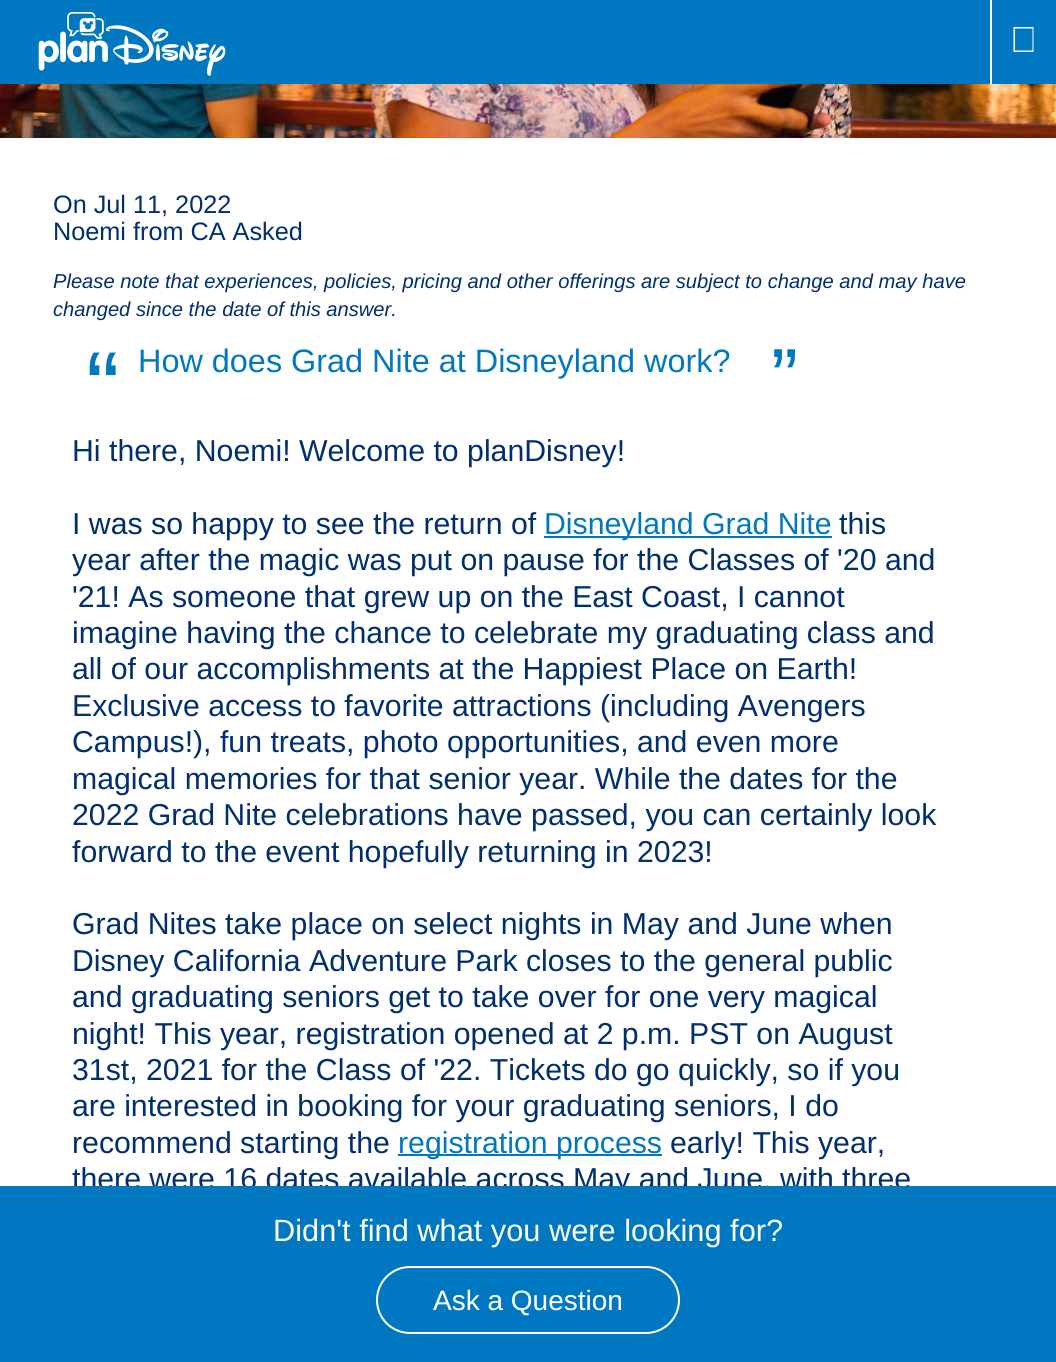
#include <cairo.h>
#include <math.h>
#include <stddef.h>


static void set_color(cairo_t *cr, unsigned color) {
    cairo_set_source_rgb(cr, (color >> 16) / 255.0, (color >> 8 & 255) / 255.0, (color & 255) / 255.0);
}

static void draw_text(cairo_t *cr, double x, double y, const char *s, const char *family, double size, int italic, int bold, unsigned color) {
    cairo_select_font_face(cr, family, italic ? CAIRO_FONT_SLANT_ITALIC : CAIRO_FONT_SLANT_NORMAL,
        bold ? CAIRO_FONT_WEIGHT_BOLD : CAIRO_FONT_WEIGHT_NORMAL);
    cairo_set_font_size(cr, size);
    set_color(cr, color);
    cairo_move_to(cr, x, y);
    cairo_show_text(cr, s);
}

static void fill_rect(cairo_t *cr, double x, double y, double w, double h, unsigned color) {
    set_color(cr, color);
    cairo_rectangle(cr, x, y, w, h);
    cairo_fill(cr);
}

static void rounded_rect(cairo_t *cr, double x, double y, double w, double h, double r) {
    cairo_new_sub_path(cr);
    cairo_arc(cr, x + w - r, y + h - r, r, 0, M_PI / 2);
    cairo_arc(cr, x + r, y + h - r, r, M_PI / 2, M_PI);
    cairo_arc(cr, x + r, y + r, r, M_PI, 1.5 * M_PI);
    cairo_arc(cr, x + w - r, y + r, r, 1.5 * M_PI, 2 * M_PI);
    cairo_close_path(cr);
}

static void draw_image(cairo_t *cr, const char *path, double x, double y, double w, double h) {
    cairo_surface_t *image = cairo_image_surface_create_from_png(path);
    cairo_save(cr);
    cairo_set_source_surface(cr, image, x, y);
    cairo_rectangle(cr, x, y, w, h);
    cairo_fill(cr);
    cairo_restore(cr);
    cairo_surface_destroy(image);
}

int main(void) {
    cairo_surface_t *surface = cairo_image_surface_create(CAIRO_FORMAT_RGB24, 1056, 1362);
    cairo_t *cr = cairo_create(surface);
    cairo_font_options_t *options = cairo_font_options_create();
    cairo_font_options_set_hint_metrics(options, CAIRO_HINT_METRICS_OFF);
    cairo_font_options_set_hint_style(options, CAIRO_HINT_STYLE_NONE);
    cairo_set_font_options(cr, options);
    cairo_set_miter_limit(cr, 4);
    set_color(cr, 0xFFFFFF);
    cairo_paint(cr);
    fill_rect(cr, 0, 0, 1056, 84, 0x0078C1);
    draw_image(cr, "assets/img1.png", 38, 12, 188, 64);
    fill_rect(cr, 990, 0, 2, 84, 0xFFFFFF);
    cairo_new_path(cr);
    cairo_move_to(cr, 1013.5, 27);
    cairo_line_to(cr, 1033.5, 27);
    cairo_line_to(cr, 1033.5, 52);
    cairo_line_to(cr, 1013.5, 52);
    cairo_close_path(cr);
    cairo_move_to(cr, 1015, 28.5);
    cairo_line_to(cr, 1015, 50.5);
    cairo_line_to(cr, 1032.5, 50.5);
    cairo_line_to(cr, 1032.5, 28.5);
    cairo_close_path(cr);
    cairo_fill(cr);
    draw_image(cr, "assets/img2.png", 0, 84, 1056, 54);
    draw_text(cr, 53, 213, "On Jul 11, 2022", "Liberation Sans", 25.25, 0, 0, 0x002E6E);
    draw_text(cr, 53, 240, "Noemi from CA Asked", "Liberation Sans", 25.25, 0, 0, 0x002E6E);
    draw_text(cr, 53, 288, "Please note that experiences, policies, pricing and other offerings are subject to change and may have", "Liberation Sans", 20.15, 1, 0, 0x002E6E);
    draw_text(cr, 53, 316, "changed since the date of this answer.", "Liberation Sans", 20.15, 1, 0, 0x002E6E);
    draw_text(cr, 86, 422, "“", "Liberation Sans", 101, 0, 0, 0x0078C1);
    draw_text(cr, 138, 372, "How does Grad Nite at Disneyland work?", "Liberation Sans", 32.4, 0, 0, 0x0078C1);
    draw_text(cr, 771, 405, "”", "Liberation Sans", 81, 0, 0, 0x0078C1);
    draw_text(cr, 72, 461, "Hi there, Noemi! Welcome to planDisney!", "Liberation Sans", 30.25, 0, 0, 0x002E6E);
    draw_text(cr, 72, 534, "I was so happy to see the return of", "Liberation Sans", 30.25, 0, 0, 0x002E6E);
    fill_rect(cr, 544, 536, 270, 2, 0x0078C1);
    draw_text(cr, 544, 534, "Disneyland Grad Nite", "Liberation Sans", 30.25, 0, 0, 0x0078C1);
    draw_text(cr, 839, 534, "this", "Liberation Sans", 30.25, 0, 0, 0x002E6E);
    fill_rect(cr, 814, 536, 18, 2, 0x0078C1);
    draw_text(cr, 72, 570, "year after the magic was put on pause for the Classes of '20 and", "Liberation Sans", 30.25, 0, 0, 0x002E6E);
    draw_text(cr, 72, 607, "'21! As someone that grew up on the East Coast, I cannot", "Liberation Sans", 30.25, 0, 0, 0x002E6E);
    draw_text(cr, 72, 643, "imagine having the chance to celebrate my graduating class and", "Liberation Sans", 30.25, 0, 0, 0x002E6E);
    draw_text(cr, 72, 679, "all of our accomplishments at the Happiest Place on Earth!", "Liberation Sans", 30.25, 0, 0, 0x002E6E);
    draw_text(cr, 72, 716, "Exclusive access to favorite attractions (including Avengers", "Liberation Sans", 30.25, 0, 0, 0x002E6E);
    draw_text(cr, 72, 752, "Campus!), fun treats, photo opportunities, and even more", "Liberation Sans", 30.25, 0, 0, 0x002E6E);
    draw_text(cr, 72, 789, "magical memories for that senior year. While the dates for the", "Liberation Sans", 30.25, 0, 0, 0x002E6E);
    draw_text(cr, 72, 825, "2022 Grad Nite celebrations have passed, you can certainly look", "Liberation Sans", 30.25, 0, 0, 0x002E6E);
    draw_text(cr, 72, 862, "forward to the event hopefully returning in 2023!", "Liberation Sans", 30.25, 0, 0, 0x002E6E);
    draw_text(cr, 72, 934, "Grad Nites take place on select nights in May and June when", "Liberation Sans", 30.25, 0, 0, 0x002E6E);
    draw_text(cr, 72, 971, "Disney California Adventure Park closes to the general public", "Liberation Sans", 30.25, 0, 0, 0x002E6E);
    draw_text(cr, 72, 1007, "and graduating seniors get to take over for one very magical", "Liberation Sans", 30.25, 0, 0, 0x002E6E);
    draw_text(cr, 72, 1044, "night! This year, registration opened at 2 p.m. PST on August", "Liberation Sans", 30.25, 0, 0, 0x002E6E);
    draw_text(cr, 72, 1080, "31st, 2021 for the Class of '22. Tickets do go quickly, so if you", "Liberation Sans", 30.25, 0, 0, 0x002E6E);
    draw_text(cr, 72, 1116, "are interested in booking for your graduating seniors, I do", "Liberation Sans", 30.25, 0, 0, 0x002E6E);
    draw_text(cr, 72, 1153, "recommend starting the", "Liberation Sans", 30.25, 0, 0, 0x002E6E);
    fill_rect(cr, 398, 1154, 264, 2, 0x0078C1);
    draw_text(cr, 398, 1153, "registration process", "Liberation Sans", 30.25, 0, 0, 0x0078C1);
    draw_text(cr, 670, 1153, "early! This year,", "Liberation Sans", 30.25, 0, 0, 0x002E6E);
    draw_text(cr, 72, 1189, "there were 16 dates available across May and June, with three", "Liberation Sans", 30.25, 0, 0, 0x002E6E);
    fill_rect(cr, 0, 1186, 1056, 176, 0x0078C1);
    draw_text(cr, 273, 1241, "Didn't find what you were looking for?", "Liberation Sans", 30.75, 0, 0, 0xFFFFFF);
    rounded_rect(cr, 377, 1267, 302, 66, 33);
    cairo_stroke(cr);
    draw_text(cr, 433, 1310, "Ask a Question", "Liberation Sans", 28, 0, 0, 0xFFFFFF);
    cairo_surface_write_to_png(surface, "output.png");
    cairo_font_options_destroy(options);
    cairo_destroy(cr);
    cairo_surface_destroy(surface);
    return 0;
}
